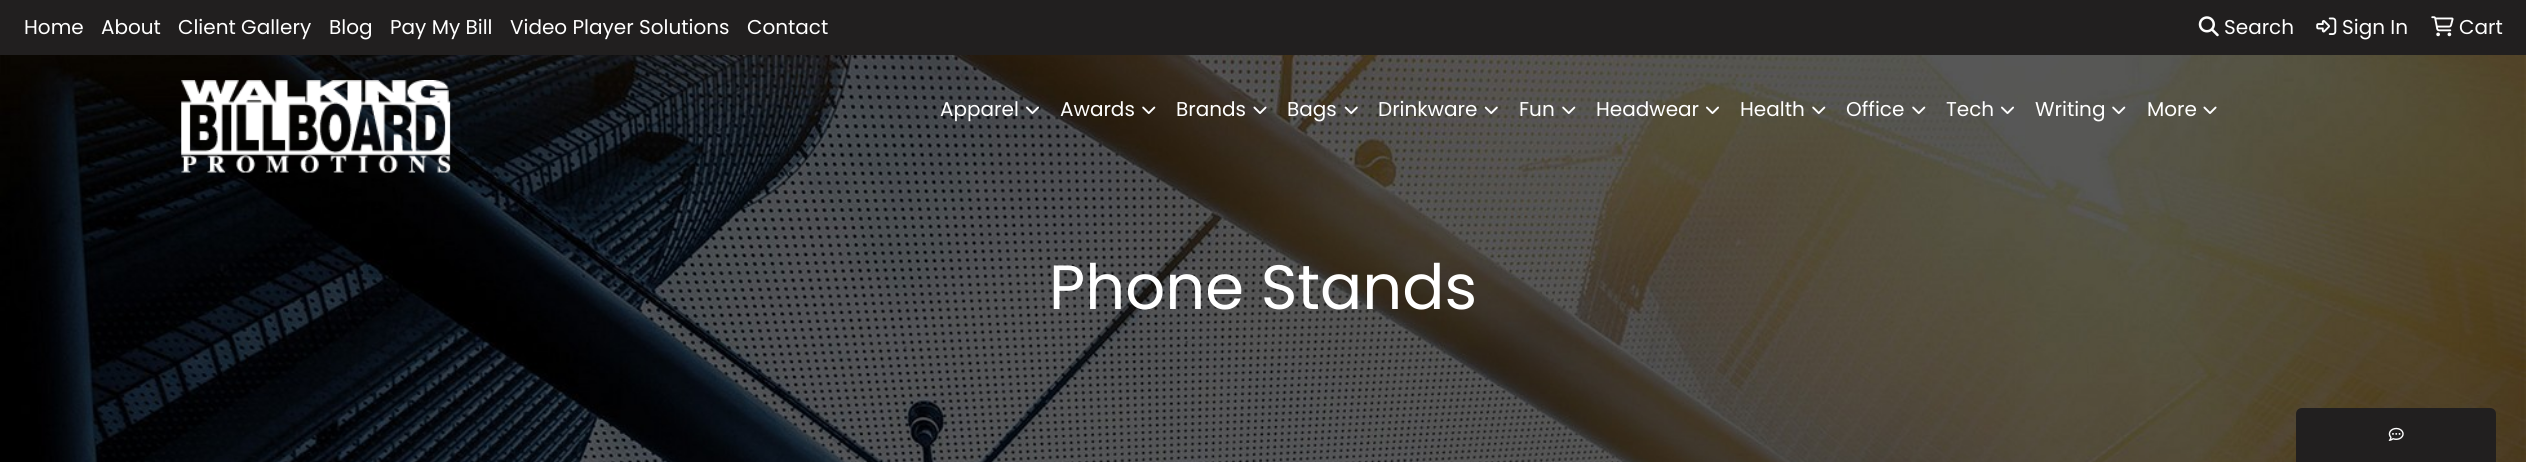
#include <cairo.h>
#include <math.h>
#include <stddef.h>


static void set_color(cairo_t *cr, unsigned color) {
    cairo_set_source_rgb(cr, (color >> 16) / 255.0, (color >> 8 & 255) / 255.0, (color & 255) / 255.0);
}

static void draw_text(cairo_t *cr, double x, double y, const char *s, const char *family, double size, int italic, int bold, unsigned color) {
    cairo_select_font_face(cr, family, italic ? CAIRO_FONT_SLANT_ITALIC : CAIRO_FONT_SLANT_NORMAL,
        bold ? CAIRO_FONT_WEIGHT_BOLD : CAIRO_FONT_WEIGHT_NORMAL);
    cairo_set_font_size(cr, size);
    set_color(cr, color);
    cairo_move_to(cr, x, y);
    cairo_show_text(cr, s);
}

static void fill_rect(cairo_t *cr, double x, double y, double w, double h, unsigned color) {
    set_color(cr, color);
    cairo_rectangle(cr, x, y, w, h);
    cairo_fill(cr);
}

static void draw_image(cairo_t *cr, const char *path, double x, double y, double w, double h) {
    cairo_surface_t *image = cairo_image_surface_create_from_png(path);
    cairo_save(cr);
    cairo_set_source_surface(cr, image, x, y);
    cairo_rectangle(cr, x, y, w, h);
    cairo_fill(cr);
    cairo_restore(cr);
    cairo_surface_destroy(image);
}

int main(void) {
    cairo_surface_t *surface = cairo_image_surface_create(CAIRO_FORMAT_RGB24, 2526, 462);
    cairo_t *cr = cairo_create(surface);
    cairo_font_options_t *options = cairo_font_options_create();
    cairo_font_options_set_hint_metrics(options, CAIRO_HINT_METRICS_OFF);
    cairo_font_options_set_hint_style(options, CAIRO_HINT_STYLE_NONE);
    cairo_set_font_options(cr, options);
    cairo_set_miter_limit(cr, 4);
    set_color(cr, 0xFFFFFF);
    cairo_paint(cr);
    fill_rect(cr, 0, 0, 2526, 55, 0x211F1F);
    draw_text(cr, 24, 34, "Home", "Poppins", 20, 0, 0, 0xFFFFFF);
    draw_text(cr, 101, 34, "About", "Poppins", 20, 0, 0, 0xFFFFFF);
    draw_text(cr, 178, 34, "Client Gallery", "Poppins", 20, 0, 0, 0xFFFFFF);
    draw_text(cr, 329, 34, "Blog", "Poppins", 20, 0, 0, 0xFFFFFF);
    draw_text(cr, 390, 34, "Pay My Bill", "Poppins", 20, 0, 0, 0xFFFFFF);
    draw_text(cr, 510, 34, "Video Player Solutions", "Poppins", 20, 0, 0, 0xFFFFFF);
    draw_text(cr, 747, 34, "Contact", "Poppins", 20, 0, 0, 0xFFFFFF);
    draw_image(cr, "assets/img1.png", 2198, 16, 21, 21);
    draw_text(cr, 2224, 34, "Search", "Poppins", 20, 0, 0, 0xFFFFFF);
    draw_image(cr, "assets/img2.png", 2316, 17, 21, 18);
    draw_text(cr, 2342, 34, "Sign In", "Poppins", 20, 0, 0, 0xFFFFFF);
    draw_image(cr, "assets/img3.png", 2431, 16, 23, 21);
    draw_text(cr, 2459, 34, "Cart", "Poppins", 20, 0, 0, 0xFFFFFF);
    draw_image(cr, "assets/img17.png", 0, 55, 2526, 407);
    draw_image(cr, "assets/img4.png", 181, 80, 270, 93);
    draw_text(cr, 940, 116, "Apparel", "Poppins", 20, 0, 0, 0xFFFFFF);
    draw_image(cr, "assets/img5.png", 1026, 106, 13, 8);
    draw_text(cr, 1060, 116, "Awards", "Poppins", 20, 0, 0, 0xFFFFFF);
    draw_image(cr, "assets/img6.png", 1142, 106, 14, 8);
    draw_text(cr, 1176, 116, "Brands", "Poppins", 20, 0, 0, 0xFFFFFF);
    draw_image(cr, "assets/img7.png", 1253, 106, 14, 8);
    draw_text(cr, 1287, 116, "Bags", "Poppins", 20, 0, 0, 0xFFFFFF);
    draw_image(cr, "assets/img8.png", 1344, 106, 14, 8);
    draw_text(cr, 1378, 116, "Drinkware", "Poppins", 20, 0, 0, 0xFFFFFF);
    draw_image(cr, "assets/img9.png", 1484, 106, 14, 8);
    draw_text(cr, 1519, 116, "Fun", "Poppins", 20, 0, 0, 0xFFFFFF);
    draw_image(cr, "assets/img10.png", 1562, 106, 14, 8);
    draw_text(cr, 1596, 116, "Headwear", "Poppins", 20, 0, 0, 0xFFFFFF);
    draw_image(cr, "assets/img11.png", 1706, 106, 13, 8);
    draw_text(cr, 1740, 116, "Health", "Poppins", 20, 0, 0, 0xFFFFFF);
    draw_image(cr, "assets/img12.png", 1812, 106, 14, 8);
    draw_text(cr, 1846, 116, "Office", "Poppins", 20, 0, 0, 0xFFFFFF);
    draw_image(cr, "assets/img13.png", 1912, 106, 14, 8);
    draw_text(cr, 1946, 116, "Tech", "Poppins", 20, 0, 0, 0xFFFFFF);
    draw_image(cr, "assets/img14.png", 2001, 106, 13, 8);
    draw_text(cr, 2035, 116, "Writing", "Poppins", 20, 0, 0, 0xFFFFFF);
    draw_image(cr, "assets/img15.png", 2112, 106, 14, 8);
    draw_text(cr, 2147, 116, "More", "Poppins", 20, 0, 0, 0xFFFFFF);
    draw_image(cr, "assets/img16.png", 2203, 106, 14, 8);
    draw_text(cr, 1049, 309, "Phone Stands", "Poppins", 62.5, 0, 0, 0xFFFFFF);
    set_color(cr, 0x211F1F);
    cairo_new_path(cr);
    cairo_move_to(cr, 2302, 408);
    cairo_line_to(cr, 2490, 408);
    cairo_curve_to(cr, 2493.5, 408, 2496, 410.5, 2496, 414);
    cairo_line_to(cr, 2496, 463);
    cairo_line_to(cr, 2296, 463);
    cairo_line_to(cr, 2296, 414);
    cairo_curve_to(cr, 2296, 410.5, 2298.5, 408, 2302, 408);
    cairo_close_path(cr);
    cairo_fill(cr);
    draw_image(cr, "assets/img18.png", 2388, 427, 16, 14);
    cairo_surface_write_to_png(surface, "output.png");
    cairo_font_options_destroy(options);
    cairo_destroy(cr);
    cairo_surface_destroy(surface);
    return 0;
}
